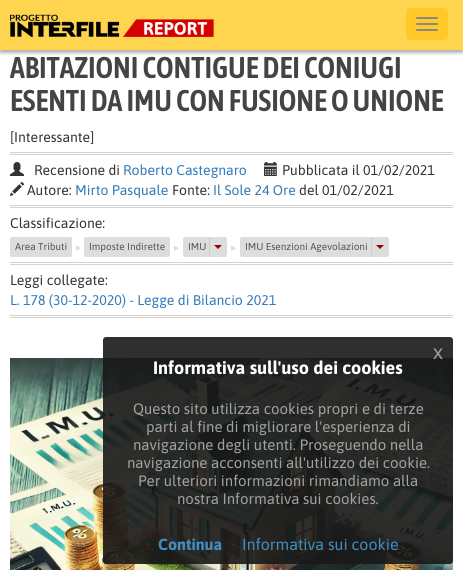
#include <cairo.h>
#include <math.h>
#include <stddef.h>


static void set_color(cairo_t *cr, unsigned color) {
    cairo_set_source_rgb(cr, (color >> 16) / 255.0, (color >> 8 & 255) / 255.0, (color & 255) / 255.0);
}

static void draw_text(cairo_t *cr, double x, double y, const char *s, const char *family, double size, int italic, int bold, unsigned color) {
    cairo_select_font_face(cr, family, italic ? CAIRO_FONT_SLANT_ITALIC : CAIRO_FONT_SLANT_NORMAL,
        bold ? CAIRO_FONT_WEIGHT_BOLD : CAIRO_FONT_WEIGHT_NORMAL);
    cairo_set_font_size(cr, size);
    set_color(cr, color);
    cairo_move_to(cr, x, y);
    cairo_show_text(cr, s);
}

static void fill_rect(cairo_t *cr, double x, double y, double w, double h, unsigned color) {
    set_color(cr, color);
    cairo_rectangle(cr, x, y, w, h);
    cairo_fill(cr);
}

static void rounded_rect(cairo_t *cr, double x, double y, double w, double h, double r) {
    cairo_new_sub_path(cr);
    cairo_arc(cr, x + w - r, y + h - r, r, 0, M_PI / 2);
    cairo_arc(cr, x + r, y + h - r, r, M_PI / 2, M_PI);
    cairo_arc(cr, x + r, y + r, r, M_PI, 1.5 * M_PI);
    cairo_arc(cr, x + w - r, y + r, r, 1.5 * M_PI, 2 * M_PI);
    cairo_close_path(cr);
}

static void draw_shadow(cairo_t *cr, double x, double y, double w, double h, double r, double blur, double alpha) {
    cairo_push_group_with_content(cr, CAIRO_CONTENT_ALPHA);
    cairo_set_operator(cr, CAIRO_OPERATOR_SOURCE);
    for (int i = 15; i >= -15 && fmin(w, h) + blur * i / 3 > 0; i -= 2) {
        double e = blur * i / 6;
        cairo_set_source_rgba(cr, 0, 0, 0, alpha * erfc((i - 1) / 8.5) / 2);
        rounded_rect(cr, x - e, y - e, w + 2 * e, h + 2 * e, fmax(0, fmin(r + e + blur * .6, fmin(w, h) / 2 + e)));
        cairo_fill(cr);
    }
    cairo_pattern_t *soft = cairo_pop_group(cr);
    cairo_mask(cr, soft);
    cairo_pattern_destroy(soft);
}

static void draw_image(cairo_t *cr, const char *path, double x, double y, double w, double h) {
    cairo_surface_t *image = cairo_image_surface_create_from_png(path);
    cairo_save(cr);
    cairo_set_source_surface(cr, image, x, y);
    cairo_rectangle(cr, x, y, w, h);
    cairo_fill(cr);
    cairo_restore(cr);
    cairo_surface_destroy(image);
}

int main(void) {
    cairo_surface_t *surface = cairo_image_surface_create(CAIRO_FORMAT_RGB24, 463, 570);
    cairo_t *cr = cairo_create(surface);
    cairo_font_options_t *options = cairo_font_options_create();
    cairo_font_options_set_hint_metrics(options, CAIRO_HINT_METRICS_OFF);
    cairo_font_options_set_hint_style(options, CAIRO_HINT_STYLE_NONE);
    cairo_set_font_options(cr, options);
    cairo_set_miter_limit(cr, 4);
    set_color(cr, 0xFFFFFF);
    cairo_paint(cr);
    set_color(cr, 0x000000);
    draw_shadow(cr, 0, 3, 463, 50, 0, 1.5, 0.3);
    fill_rect(cr, 0, 0, 463, 50, 0xFFD54F);
    draw_image(cr, "assets/img1.png", 10, 14, 204, 24);
    set_color(cr, 0xFFCA28);
    rounded_rect(cr, 406, 8, 42, 32, 4);
    cairo_fill(cr);
    set_color(cr, 0x888888);
    rounded_rect(cr, 416, 17, 22, 2, 1);
    cairo_fill(cr);
    rounded_rect(cr, 416, 23, 22, 2, 1);
    cairo_fill(cr);
    rounded_rect(cr, 416, 29, 22, 2, 1);
    cairo_fill(cr);
    draw_text(cr, 10, 78, "ABITAZIONI CONTIGUE DEI CONIUGI", "Asap Condensed SemiBold", 30, 0, 0, 0x444444);
    draw_text(cr, 10, 111, "ESENTI DA IMU CON FUSIONE O UNIONE", "Asap Condensed SemiBold", 30, 0, 0, 0x444444);
    draw_text(cr, 10, 142, "[Interessante]", "Asap", 14, 0, 0, 0x333333);
    fill_rect(cr, 10, 152, 443, 1, 0xD4D4D4);
    fill_rect(cr, 10, 154, 443, 1, 0xD4D4D4);
    draw_image(cr, "assets/img2.png", 10, 162, 14, 14);
    draw_text(cr, 34, 175, "Recensione di", "Asap", 14, 0, 0, 0x333333);
    draw_text(cr, 123, 175, "Roberto Castegnaro", "Asap", 14, 0, 0, 0x337AB7);
    draw_image(cr, "assets/img3.png", 264, 162, 13, 14);
    draw_text(cr, 282, 175, "Pubblicata il 01/02/2021", "Asap", 14, 0, 0, 0x333333);
    draw_image(cr, "assets/img4.png", 9, 181, 16, 16);
    draw_text(cr, 27, 195, "Autore:", "Asap", 14, 0, 0, 0x333333);
    draw_text(cr, 75, 195, "Mirto Pasquale", "Asap", 14, 0, 0, 0x337AB7);
    draw_text(cr, 172, 195, "Fonte:", "Asap", 14, 0, 0, 0x333333);
    draw_text(cr, 213, 195, "Il Sole 24 Ore", "Asap", 14, 0, 0, 0x337AB7);
    draw_text(cr, 299, 195, "del 01/02/2021", "Asap", 14, 0, 0, 0x333333);
    fill_rect(cr, 10, 205, 443, 1, 0xD4D4D4);
    fill_rect(cr, 10, 207, 443, 1, 0xD4D4D4);
    draw_text(cr, 10, 228, "Classificazione:", "Asap", 14, 0, 0, 0x333333);
    set_color(cr, 0xDDDDDD);
    rounded_rect(cr, 10, 237, 62, 20, 2);
    cairo_fill(cr);
    draw_text(cr, 15, 250, "Area Tributi", "Asap", 10, 0, 0, 0x555555);
    draw_text(cr, 76, 250, "▶", "DejaVu Sans", 7, 0, 0, 0xDDDDDD);
    rounded_rect(cr, 84, 237, 86, 20, 2);
    cairo_fill(cr);
    draw_text(cr, 89, 250, "Imposte Indirette", "Asap", 10, 0, 0, 0x555555);
    draw_text(cr, 174, 250, "▶", "DejaVu Sans", 7, 0, 0, 0xDDDDDD);
    cairo_new_path(cr);
    cairo_move_to(cr, 185, 237);
    cairo_line_to(cr, 211, 237);
    cairo_line_to(cr, 211, 257);
    cairo_line_to(cr, 185, 257);
    cairo_curve_to(cr, 184, 257, 183, 256, 183, 255);
    cairo_line_to(cr, 183, 239);
    cairo_curve_to(cr, 183, 238, 184, 237, 185, 237);
    cairo_close_path(cr);
    cairo_fill(cr);
    draw_text(cr, 188, 250, "IMU", "Asap", 10, 0, 0, 0x555555);
    set_color(cr, 0xDDDDDD);
    cairo_new_path(cr);
    cairo_move_to(cr, 209, 237);
    cairo_line_to(cr, 225, 237);
    cairo_curve_to(cr, 226, 237, 227, 238, 227, 239);
    cairo_line_to(cr, 227, 255);
    cairo_curve_to(cr, 227, 256, 226, 257, 225, 257);
    cairo_line_to(cr, 209, 257);
    cairo_close_path(cr);
    cairo_fill(cr);
    set_color(cr, 0xCDCDCD);
    cairo_new_path(cr);
    cairo_move_to(cr, 210, 238);
    cairo_line_to(cr, 209, 237);
    cairo_line_to(cr, 209, 257);
    cairo_line_to(cr, 210, 256);
    cairo_close_path(cr);
    cairo_fill(cr);
    set_color(cr, 0x960000);
    cairo_new_path(cr);
    cairo_move_to(cr, 214, 245);
    cairo_line_to(cr, 222, 245);
    cairo_line_to(cr, 218, 249);
    cairo_close_path(cr);
    cairo_fill(cr);
    draw_text(cr, 231, 250, "▶", "DejaVu Sans", 7, 0, 0, 0xDDDDDD);
    cairo_new_path(cr);
    cairo_move_to(cr, 242, 237);
    cairo_line_to(cr, 372, 237);
    cairo_line_to(cr, 372, 257);
    cairo_line_to(cr, 242, 257);
    cairo_curve_to(cr, 241, 257, 240, 256, 240, 255);
    cairo_line_to(cr, 240, 239);
    cairo_curve_to(cr, 240, 238, 241, 237, 242, 237);
    cairo_close_path(cr);
    cairo_fill(cr);
    draw_text(cr, 245, 250, "IMU Esenzioni Agevolazioni", "Asap", 10, 0, 0, 0x555555);
    set_color(cr, 0xDDDDDD);
    cairo_new_path(cr);
    cairo_move_to(cr, 371, 237);
    cairo_line_to(cr, 387, 237);
    cairo_curve_to(cr, 388, 237, 389, 238, 389, 239);
    cairo_line_to(cr, 389, 255);
    cairo_curve_to(cr, 389, 256, 388, 257, 387, 257);
    cairo_line_to(cr, 371, 257);
    cairo_close_path(cr);
    cairo_fill(cr);
    set_color(cr, 0xCDCDCD);
    cairo_new_path(cr);
    cairo_move_to(cr, 372, 238);
    cairo_line_to(cr, 371, 237);
    cairo_line_to(cr, 371, 257);
    cairo_line_to(cr, 372, 256);
    cairo_close_path(cr);
    cairo_fill(cr);
    set_color(cr, 0x960000);
    cairo_new_path(cr);
    cairo_move_to(cr, 376, 245);
    cairo_line_to(cr, 384, 245);
    cairo_line_to(cr, 380, 249);
    cairo_close_path(cr);
    cairo_fill(cr);
    fill_rect(cr, 10, 262, 443, 1, 0xD4D4D4);
    fill_rect(cr, 10, 264, 443, 1, 0xD4D4D4);
    draw_text(cr, 10, 285, "Leggi collegate:", "Asap", 14, 0, 0, 0x333333);
    draw_text(cr, 10, 305, "L. 178 (30-12-2020) - Legge di Bilancio 2021", "Asap", 14, 0, 0, 0x337AB7);
    fill_rect(cr, 10, 315, 443, 1, 0xD4D4D4);
    fill_rect(cr, 10, 317, 443, 1, 0xD4D4D4);
    draw_image(cr, "assets/img5.png", 10, 358, 443, 212);
    cairo_set_source_rgba(cr, 0.098, 0.098, 0.098, 0.9);
    rounded_rect(cr, 103, 337, 350, 227, 3);
    cairo_fill(cr);
    draw_text(cr, 433, 359, "x", "Liberation Sans", 20, 0, 0, 0xA2A2A2);
    draw_text(cr, 153, 374, "Informativa sull'uso dei cookies", "Asap", 18, 0, 1, 0xFFFFFF);
    draw_text(cr, 133, 414, "Questo sito utilizza cookies propri e di terze", "Asap", 15, 0, 0, 0xA2A2A2);
    draw_text(cr, 146, 432, "parti al fine di migliorare l'esperienza di", "Asap", 15, 0, 0, 0xA2A2A2);
    draw_text(cr, 133, 450, "navigazione degli utenti. Proseguendo nella", "Asap", 15, 0, 0, 0xA2A2A2);
    draw_text(cr, 127, 468, "navigazione acconsenti all'utilizzo dei cookie.", "Asap", 15, 0, 0, 0xA2A2A2);
    draw_text(cr, 138, 486, "Per ulteriori informazioni rimandiamo alla", "Asap", 15, 0, 0, 0xA2A2A2);
    draw_text(cr, 177, 504, "nostra Informativa sui cookies.", "Asap", 15, 0, 0, 0xA2A2A2);
    draw_text(cr, 158, 550, "Continua", "Asap", 16, 0, 1, 0x438DBF);
    draw_text(cr, 242, 550, "Informativa sui cookie", "Asap", 16, 0, 0, 0x438DBF);
    cairo_surface_write_to_png(surface, "output.png");
    cairo_font_options_destroy(options);
    cairo_destroy(cr);
    cairo_surface_destroy(surface);
    return 0;
}
